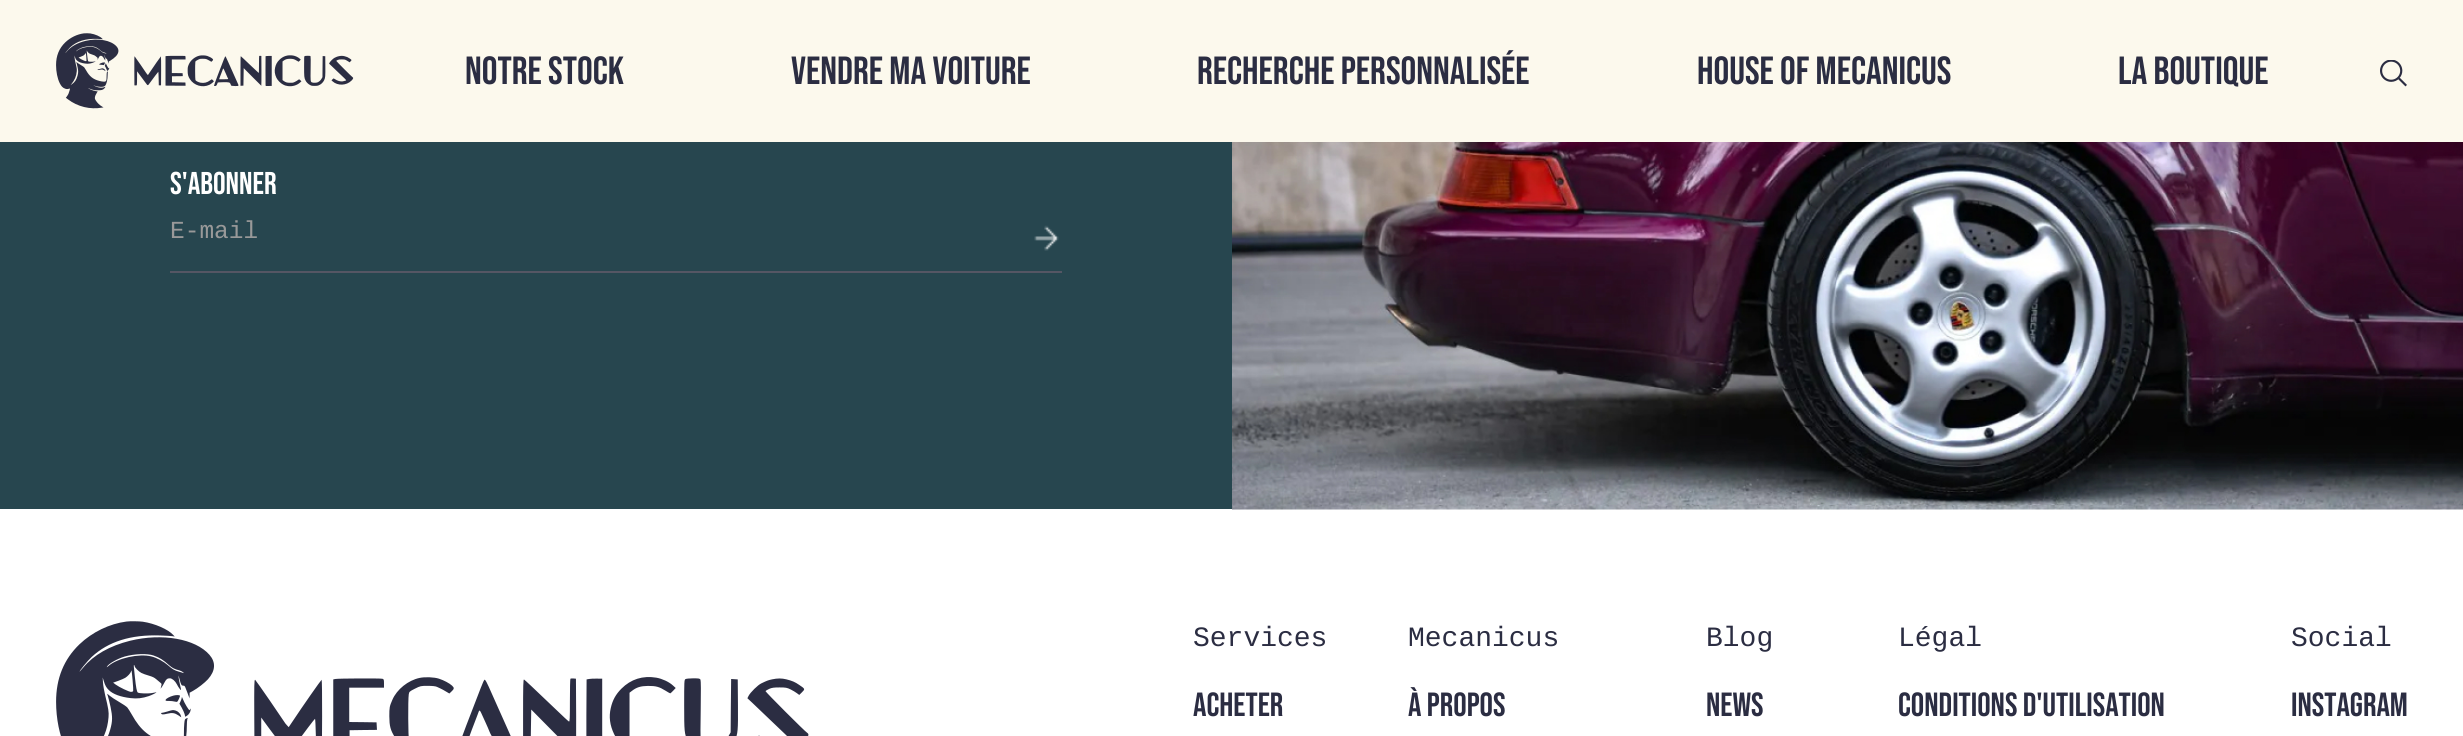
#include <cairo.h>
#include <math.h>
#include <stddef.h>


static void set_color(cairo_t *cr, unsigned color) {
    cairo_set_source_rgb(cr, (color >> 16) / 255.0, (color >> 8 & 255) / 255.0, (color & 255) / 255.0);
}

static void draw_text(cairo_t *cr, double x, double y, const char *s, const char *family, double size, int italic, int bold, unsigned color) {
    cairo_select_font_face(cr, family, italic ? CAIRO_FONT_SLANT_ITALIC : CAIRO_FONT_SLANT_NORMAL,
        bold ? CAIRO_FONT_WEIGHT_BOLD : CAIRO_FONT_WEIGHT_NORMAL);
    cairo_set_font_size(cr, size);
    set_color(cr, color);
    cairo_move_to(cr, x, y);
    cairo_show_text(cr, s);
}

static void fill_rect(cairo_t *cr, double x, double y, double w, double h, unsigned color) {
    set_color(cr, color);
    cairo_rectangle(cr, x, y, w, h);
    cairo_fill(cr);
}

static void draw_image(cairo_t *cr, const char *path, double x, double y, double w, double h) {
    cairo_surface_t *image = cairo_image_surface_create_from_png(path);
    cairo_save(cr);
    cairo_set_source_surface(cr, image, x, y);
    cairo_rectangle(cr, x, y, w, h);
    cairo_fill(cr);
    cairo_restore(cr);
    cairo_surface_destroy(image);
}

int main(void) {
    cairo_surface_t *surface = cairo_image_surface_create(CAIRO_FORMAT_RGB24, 2463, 736);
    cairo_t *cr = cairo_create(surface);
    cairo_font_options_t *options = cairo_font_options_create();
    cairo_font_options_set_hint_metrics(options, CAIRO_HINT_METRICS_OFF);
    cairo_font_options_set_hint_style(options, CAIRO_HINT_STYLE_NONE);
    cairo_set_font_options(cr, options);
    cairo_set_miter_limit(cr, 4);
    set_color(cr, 0xFFFFFF);
    cairo_paint(cr);
    fill_rect(cr, 0, 0, 2463, 142, 0xFCF9ED);
    draw_image(cr, "assets/img1.png", 56, 33, 298, 76);
    draw_text(cr, 465, 84, "NOTRE STOCK", "Bebas Neue", 39.25, 0, 0, 0x2B2D42);
    draw_text(cr, 791, 84, "VENDRE MA VOITURE", "Bebas Neue", 39.25, 0, 0, 0x2B2D42);
    draw_text(cr, 1197, 84, "RECHERCHE PERSONNALISÉE", "Bebas Neue", 39.25, 0, 0, 0x2B2D42);
    draw_text(cr, 1697, 84, "HOUSE OF MECANICUS", "Bebas Neue", 39.25, 0, 0, 0x2B2D42);
    draw_text(cr, 2118, 84, "LA BOUTIQUE", "Bebas Neue", 39.25, 0, 0, 0x2B2D42);
    draw_image(cr, "assets/img2.png", 2380, 60, 27, 27);
    fill_rect(cr, 0, 142, 1232, 367, 0x27464F);
    draw_text(cr, 170, 194, "s'abonner", "Bebas Neue", 31.5, 0, 0, 0xFFFFFF);
    fill_rect(cr, 170, 271, 892, 2, 0x555664);
    draw_text(cr, 170, 238, "E-mail", "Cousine", 24.5, 0, 0, 0x999999);
    draw_image(cr, "assets/img3.png", 1034, 225, 25, 26);
    draw_image(cr, "assets/img4.png", 1232, 142, 1231, 368);
    draw_image(cr, "assets/img5.png", 56, 621, 753, 115);
    draw_text(cr, 1193, 646, "Services", "Cousine", 28, 0, 0, 0x2B2D42);
    draw_text(cr, 1193, 716, "ACHETER", "Bebas Neue", 33.5, 0, 0, 0x2B2D42);
    draw_text(cr, 1408, 646, "Mecanicus", "Cousine", 28, 0, 0, 0x2B2D42);
    draw_text(cr, 1408, 716, "À PROPOS", "Bebas Neue", 33.5, 0, 0, 0x2B2D42);
    draw_text(cr, 1706, 646, "Blog", "Cousine", 28, 0, 0, 0x2B2D42);
    draw_text(cr, 1706, 716, "NEWS", "Bebas Neue", 33.5, 0, 0, 0x2B2D42);
    draw_text(cr, 1898, 646, "Légal", "Cousine", 28, 0, 0, 0x2B2D42);
    draw_text(cr, 1898, 716, "CONDITIONS D'UTILISATION", "Bebas Neue", 33.5, 0, 0, 0x2B2D42);
    draw_text(cr, 2291, 646, "Social", "Cousine", 28, 0, 0, 0x2B2D42);
    draw_text(cr, 2291, 716, "INSTAGRAM", "Bebas Neue", 33.5, 0, 0, 0x2B2D42);
    cairo_surface_write_to_png(surface, "output.png");
    cairo_font_options_destroy(options);
    cairo_destroy(cr);
    cairo_surface_destroy(surface);
    return 0;
}
